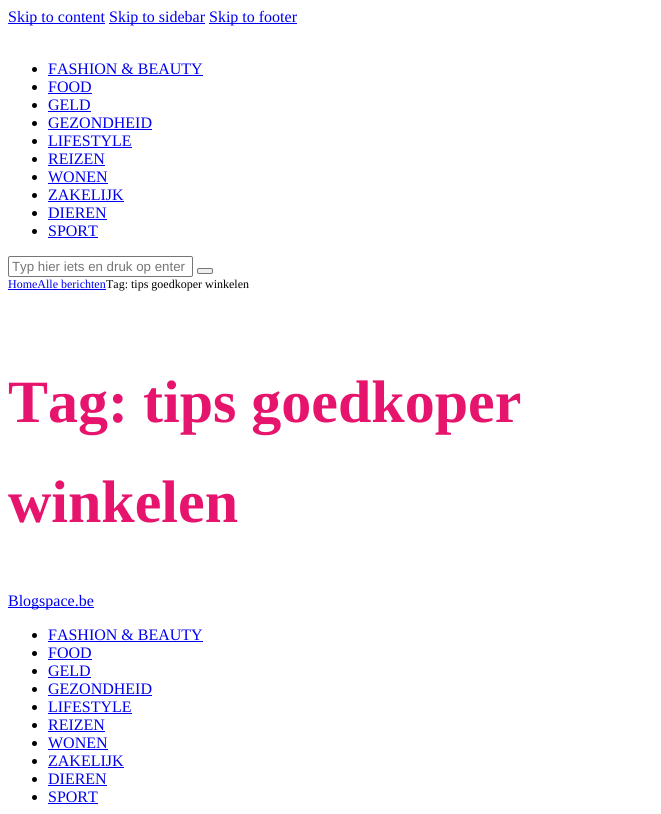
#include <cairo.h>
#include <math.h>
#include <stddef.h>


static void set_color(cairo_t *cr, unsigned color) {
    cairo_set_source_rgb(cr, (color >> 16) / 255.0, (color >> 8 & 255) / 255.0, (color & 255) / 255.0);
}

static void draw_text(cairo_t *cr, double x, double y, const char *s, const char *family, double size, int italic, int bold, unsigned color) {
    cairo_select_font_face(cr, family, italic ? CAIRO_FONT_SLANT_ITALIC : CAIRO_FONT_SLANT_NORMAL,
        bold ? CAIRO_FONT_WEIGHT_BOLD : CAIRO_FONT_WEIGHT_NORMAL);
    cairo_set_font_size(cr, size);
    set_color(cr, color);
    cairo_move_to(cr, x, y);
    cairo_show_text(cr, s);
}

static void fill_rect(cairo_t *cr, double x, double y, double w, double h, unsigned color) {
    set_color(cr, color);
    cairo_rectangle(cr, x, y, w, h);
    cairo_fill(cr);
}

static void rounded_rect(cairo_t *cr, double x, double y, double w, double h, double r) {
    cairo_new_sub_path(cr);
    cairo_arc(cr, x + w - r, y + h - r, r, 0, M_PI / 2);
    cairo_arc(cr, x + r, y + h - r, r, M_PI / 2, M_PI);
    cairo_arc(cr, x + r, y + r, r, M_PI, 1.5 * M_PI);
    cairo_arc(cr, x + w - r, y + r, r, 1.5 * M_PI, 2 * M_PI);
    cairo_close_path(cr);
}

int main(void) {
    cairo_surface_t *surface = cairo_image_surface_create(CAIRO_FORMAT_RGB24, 661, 814);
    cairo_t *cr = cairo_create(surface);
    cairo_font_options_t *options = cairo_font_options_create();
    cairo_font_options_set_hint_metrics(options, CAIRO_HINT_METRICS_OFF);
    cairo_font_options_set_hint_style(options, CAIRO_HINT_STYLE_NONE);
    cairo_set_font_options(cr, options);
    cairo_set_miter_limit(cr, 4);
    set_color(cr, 0xFFFFFF);
    cairo_paint(cr);
    fill_rect(cr, 8, 23, 97, 1, 0x0000EE);
    draw_text(cr, 8, 22, "Skip to content", "Liberation Serif", 16, 0, 0, 0x0000EE);
    fill_rect(cr, 109, 23, 96, 1, 0x0000EE);
    draw_text(cr, 109, 22, "Skip to sidebar", "Liberation Serif", 16, 0, 0, 0x0000EE);
    fill_rect(cr, 209, 23, 88, 1, 0x0000EE);
    draw_text(cr, 209, 22, "Skip to footer", "Liberation Serif", 16, 0, 0, 0x0000EE);
    set_color(cr, 0x000000);
    cairo_new_path(cr);
    cairo_arc(cr, 34.5, 69.5, 2.5, 0, 2 * M_PI);
    cairo_fill(cr);
    draw_text(cr, 48, 74, "FASHION & BEAUTY", "Liberation Serif", 16, 0, 0, 0x0000EE);
    fill_rect(cr, 48, 75, 155, 1, 0x0000EE);
    set_color(cr, 0x000000);
    cairo_new_path(cr);
    cairo_arc(cr, 34.5, 87.5, 2.5, 0, 2 * M_PI);
    cairo_fill(cr);
    draw_text(cr, 48, 92, "FOOD", "Liberation Serif", 16, 0, 0, 0x0000EE);
    fill_rect(cr, 48, 93, 44, 1, 0x0000EE);
    set_color(cr, 0x000000);
    cairo_new_path(cr);
    cairo_arc(cr, 34.5, 105.5, 2.5, 0, 2 * M_PI);
    cairo_fill(cr);
    draw_text(cr, 48, 110, "GELD", "Liberation Serif", 16, 0, 0, 0x0000EE);
    fill_rect(cr, 48, 111, 43, 1, 0x0000EE);
    set_color(cr, 0x000000);
    cairo_new_path(cr);
    cairo_arc(cr, 34.5, 123.5, 2.5, 0, 2 * M_PI);
    cairo_fill(cr);
    draw_text(cr, 48, 128, "GEZONDHEID", "Liberation Serif", 16, 0, 0, 0x0000EE);
    fill_rect(cr, 48, 129, 104, 1, 0x0000EE);
    set_color(cr, 0x000000);
    cairo_new_path(cr);
    cairo_arc(cr, 34.5, 141.5, 2.5, 0, 2 * M_PI);
    cairo_fill(cr);
    draw_text(cr, 48, 146, "LIFESTYLE", "Liberation Serif", 16, 0, 0, 0x0000EE);
    fill_rect(cr, 48, 147, 84, 1, 0x0000EE);
    set_color(cr, 0x000000);
    cairo_new_path(cr);
    cairo_arc(cr, 34.5, 159.5, 2.5, 0, 2 * M_PI);
    cairo_fill(cr);
    draw_text(cr, 48, 164, "REIZEN", "Liberation Serif", 16, 0, 0, 0x0000EE);
    fill_rect(cr, 48, 165, 57, 1, 0x0000EE);
    set_color(cr, 0x000000);
    cairo_new_path(cr);
    cairo_arc(cr, 34.5, 177.5, 2.5, 0, 2 * M_PI);
    cairo_fill(cr);
    draw_text(cr, 48, 182, "WONEN", "Liberation Serif", 16, 0, 0, 0x0000EE);
    fill_rect(cr, 48, 183, 60, 1, 0x0000EE);
    set_color(cr, 0x000000);
    cairo_new_path(cr);
    cairo_arc(cr, 34.5, 195.5, 2.5, 0, 2 * M_PI);
    cairo_fill(cr);
    draw_text(cr, 48, 200, "ZAKELIJK", "Liberation Serif", 16, 0, 0, 0x0000EE);
    fill_rect(cr, 48, 201, 76, 1, 0x0000EE);
    set_color(cr, 0x000000);
    cairo_new_path(cr);
    cairo_arc(cr, 34.5, 213.5, 2.5, 0, 2 * M_PI);
    cairo_fill(cr);
    draw_text(cr, 48, 218, "DIEREN", "Liberation Serif", 16, 0, 0, 0x0000EE);
    fill_rect(cr, 48, 219, 59, 1, 0x0000EE);
    set_color(cr, 0x000000);
    cairo_new_path(cr);
    cairo_arc(cr, 34.5, 231.5, 2.5, 0, 2 * M_PI);
    cairo_fill(cr);
    draw_text(cr, 48, 236, "SPORT", "Liberation Serif", 16, 0, 0, 0x0000EE);
    fill_rect(cr, 48, 237, 50, 1, 0x0000EE);
    rounded_rect(cr, 8.5, 256.5, 184, 20, 1.5);
    set_color(cr, 0x767676);
    cairo_set_line_width(cr, 1);
    cairo_stroke(cr);
    draw_text(cr, 12, 271, "Typ hier iets en druk op enter", "Liberation Sans", 13.3, 0, 0, 0x757575);
    set_color(cr, 0xEFEFEF);
    rounded_rect(cr, 197.5, 268.5, 15, 5, 1.5);
    cairo_fill_preserve(cr);
    set_color(cr, 0x767676);
    cairo_stroke(cr);
    draw_text(cr, 8, 288, "HomeAlle berichten", "Liberation Serif", 12, 0, 0, 0x0000EE);
    fill_rect(cr, 8, 289, 98, 1, 0x0000EE);
    draw_text(cr, 106, 288, "Tag: tips goedkoper winkelen", "Liberation Serif", 12, 0, 0, 0x000000);
    draw_text(cr, 8, 422, "Tag: tips goedkoper", "Liberation Serif", 60, 0, 1, 0xE6146C);
    draw_text(cr, 8, 522, "winkelen", "Liberation Serif", 60, 0, 1, 0xE6146C);
    fill_rect(cr, 8, 607, 86, 1, 0x0000EE);
    draw_text(cr, 8, 606, "Blogspace.be", "Liberation Serif", 16, 0, 0, 0x0000EE);
    set_color(cr, 0x000000);
    cairo_new_path(cr);
    cairo_arc(cr, 34.5, 635.5, 2.5, 0, 2 * M_PI);
    cairo_fill(cr);
    draw_text(cr, 48, 640, "FASHION & BEAUTY", "Liberation Serif", 16, 0, 0, 0x0000EE);
    fill_rect(cr, 48, 641, 155, 1, 0x0000EE);
    set_color(cr, 0x000000);
    cairo_new_path(cr);
    cairo_arc(cr, 34.5, 653.5, 2.5, 0, 2 * M_PI);
    cairo_fill(cr);
    draw_text(cr, 48, 658, "FOOD", "Liberation Serif", 16, 0, 0, 0x0000EE);
    fill_rect(cr, 48, 659, 44, 1, 0x0000EE);
    set_color(cr, 0x000000);
    cairo_new_path(cr);
    cairo_arc(cr, 34.5, 671.5, 2.5, 0, 2 * M_PI);
    cairo_fill(cr);
    draw_text(cr, 48, 676, "GELD", "Liberation Serif", 16, 0, 0, 0x0000EE);
    fill_rect(cr, 48, 677, 43, 1, 0x0000EE);
    set_color(cr, 0x000000);
    cairo_new_path(cr);
    cairo_arc(cr, 34.5, 689.5, 2.5, 0, 2 * M_PI);
    cairo_fill(cr);
    draw_text(cr, 48, 694, "GEZONDHEID", "Liberation Serif", 16, 0, 0, 0x0000EE);
    fill_rect(cr, 48, 695, 104, 1, 0x0000EE);
    set_color(cr, 0x000000);
    cairo_new_path(cr);
    cairo_arc(cr, 34.5, 707.5, 2.5, 0, 2 * M_PI);
    cairo_fill(cr);
    draw_text(cr, 48, 712, "LIFESTYLE", "Liberation Serif", 16, 0, 0, 0x0000EE);
    fill_rect(cr, 48, 713, 84, 1, 0x0000EE);
    set_color(cr, 0x000000);
    cairo_new_path(cr);
    cairo_arc(cr, 34.5, 725.5, 2.5, 0, 2 * M_PI);
    cairo_fill(cr);
    draw_text(cr, 48, 730, "REIZEN", "Liberation Serif", 16, 0, 0, 0x0000EE);
    fill_rect(cr, 48, 731, 57, 1, 0x0000EE);
    set_color(cr, 0x000000);
    cairo_new_path(cr);
    cairo_arc(cr, 34.5, 743.5, 2.5, 0, 2 * M_PI);
    cairo_fill(cr);
    draw_text(cr, 48, 748, "WONEN", "Liberation Serif", 16, 0, 0, 0x0000EE);
    fill_rect(cr, 48, 749, 60, 1, 0x0000EE);
    set_color(cr, 0x000000);
    cairo_new_path(cr);
    cairo_arc(cr, 34.5, 761.5, 2.5, 0, 2 * M_PI);
    cairo_fill(cr);
    draw_text(cr, 48, 766, "ZAKELIJK", "Liberation Serif", 16, 0, 0, 0x0000EE);
    fill_rect(cr, 48, 767, 76, 1, 0x0000EE);
    set_color(cr, 0x000000);
    cairo_new_path(cr);
    cairo_arc(cr, 34.5, 779.5, 2.5, 0, 2 * M_PI);
    cairo_fill(cr);
    draw_text(cr, 48, 784, "DIEREN", "Liberation Serif", 16, 0, 0, 0x0000EE);
    fill_rect(cr, 48, 785, 59, 1, 0x0000EE);
    set_color(cr, 0x000000);
    cairo_new_path(cr);
    cairo_arc(cr, 34.5, 797.5, 2.5, 0, 2 * M_PI);
    cairo_fill(cr);
    draw_text(cr, 48, 802, "SPORT", "Liberation Serif", 16, 0, 0, 0x0000EE);
    fill_rect(cr, 48, 803, 50, 1, 0x0000EE);
    cairo_surface_write_to_png(surface, "output.png");
    cairo_font_options_destroy(options);
    cairo_destroy(cr);
    cairo_surface_destroy(surface);
    return 0;
}
